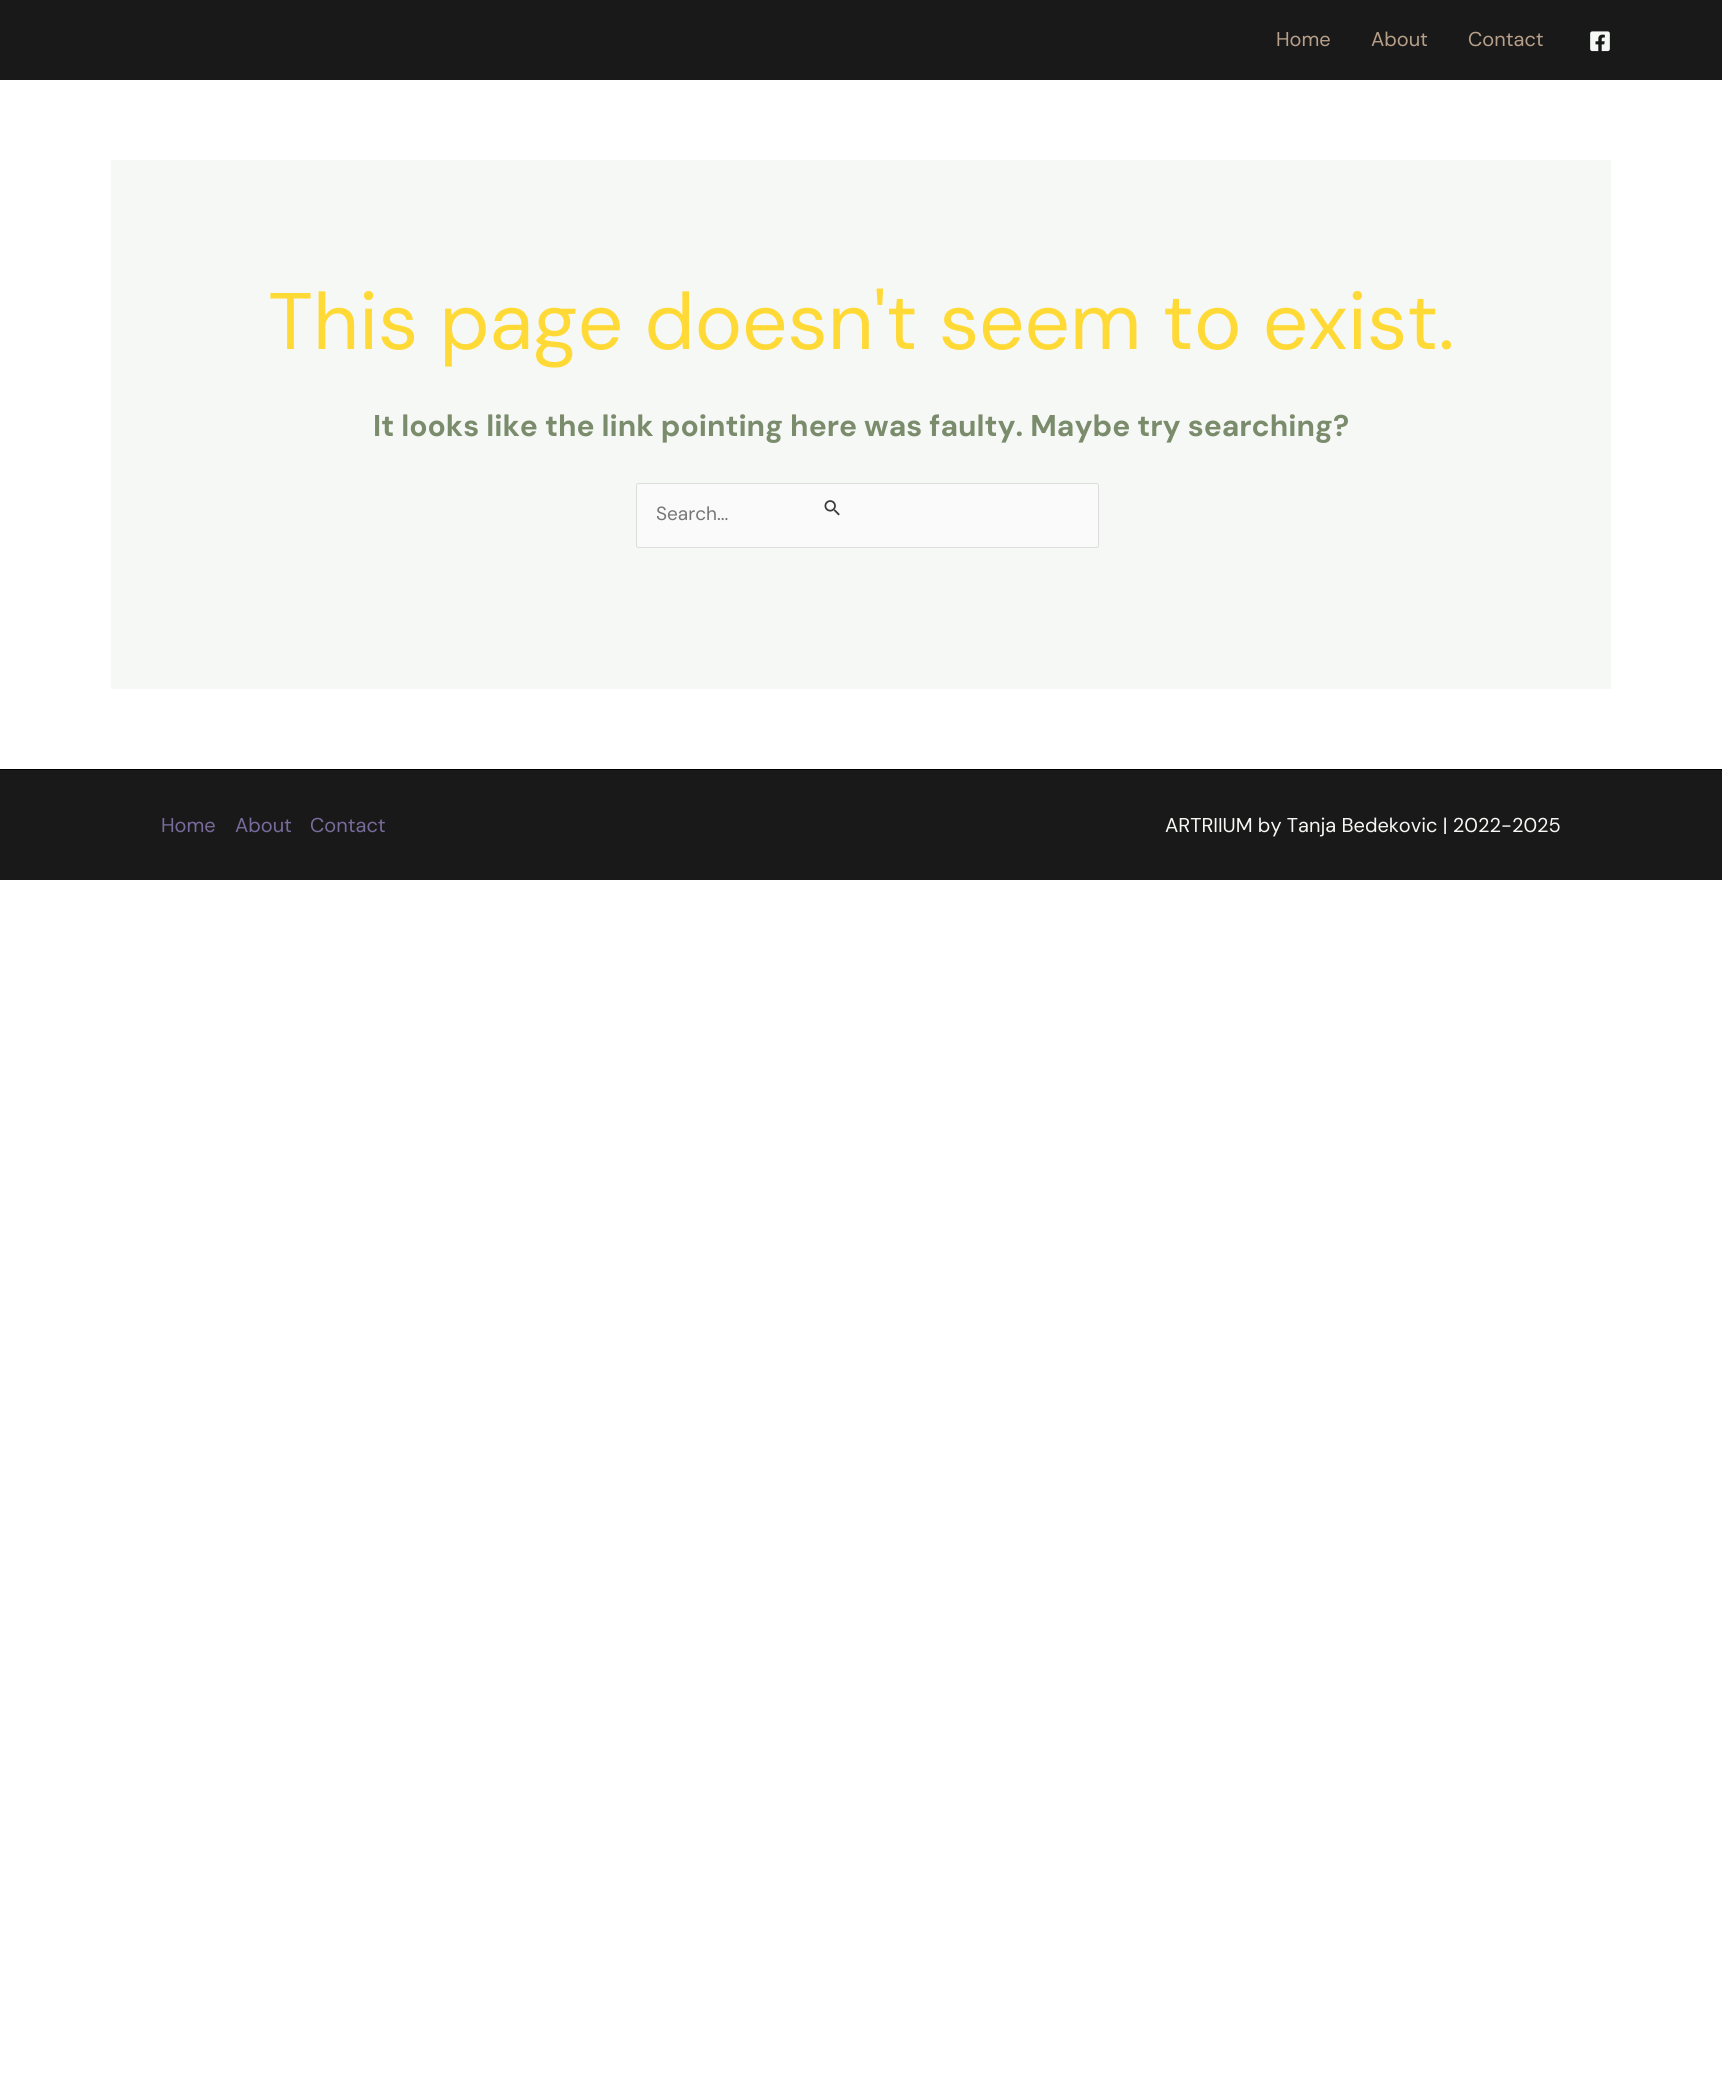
#include <cairo.h>
#include <math.h>
#include <stddef.h>


static void set_color(cairo_t *cr, unsigned color) {
    cairo_set_source_rgb(cr, (color >> 16) / 255.0, (color >> 8 & 255) / 255.0, (color & 255) / 255.0);
}

static void draw_text(cairo_t *cr, double x, double y, const char *s, const char *family, double size, int italic, int bold, unsigned color) {
    cairo_select_font_face(cr, family, italic ? CAIRO_FONT_SLANT_ITALIC : CAIRO_FONT_SLANT_NORMAL,
        bold ? CAIRO_FONT_WEIGHT_BOLD : CAIRO_FONT_WEIGHT_NORMAL);
    cairo_set_font_size(cr, size);
    set_color(cr, color);
    cairo_move_to(cr, x, y);
    cairo_show_text(cr, s);
}

static void fill_rect(cairo_t *cr, double x, double y, double w, double h, unsigned color) {
    set_color(cr, color);
    cairo_rectangle(cr, x, y, w, h);
    cairo_fill(cr);
}

static void rounded_rect(cairo_t *cr, double x, double y, double w, double h, double r) {
    cairo_new_sub_path(cr);
    cairo_arc(cr, x + w - r, y + h - r, r, 0, M_PI / 2);
    cairo_arc(cr, x + r, y + h - r, r, M_PI / 2, M_PI);
    cairo_arc(cr, x + r, y + r, r, M_PI, 1.5 * M_PI);
    cairo_arc(cr, x + w - r, y + r, r, 1.5 * M_PI, 2 * M_PI);
    cairo_close_path(cr);
}

static void draw_image(cairo_t *cr, const char *path, double x, double y, double w, double h) {
    cairo_surface_t *image = cairo_image_surface_create_from_png(path);
    cairo_save(cr);
    cairo_set_source_surface(cr, image, x, y);
    cairo_rectangle(cr, x, y, w, h);
    cairo_fill(cr);
    cairo_restore(cr);
    cairo_surface_destroy(image);
}

int main(void) {
    cairo_surface_t *surface = cairo_image_surface_create(CAIRO_FORMAT_RGB24, 1722, 2098);
    cairo_t *cr = cairo_create(surface);
    cairo_font_options_t *options = cairo_font_options_create();
    cairo_font_options_set_hint_metrics(options, CAIRO_HINT_METRICS_OFF);
    cairo_font_options_set_hint_style(options, CAIRO_HINT_STYLE_NONE);
    cairo_set_font_options(cr, options);
    cairo_set_miter_limit(cr, 4);
    set_color(cr, 0xFFFFFF);
    cairo_paint(cr);
    fill_rect(cr, 0, 0, 1722, 80, 0x1A1919);
    draw_text(cr, 1276, 46, "Home", "DM Sans", 20, 0, 0, 0xB7A08A);
    draw_text(cr, 1371, 46, "About", "DM Sans", 20, 0, 0, 0xB7A08A);
    draw_text(cr, 1468, 46, "Contact", "DM Sans", 20, 0, 0, 0xB7A08A);
    draw_image(cr, "assets/img1.png", 1590, 31, 20, 21);
    fill_rect(cr, 111, 160, 1500, 529, 0xF6F8F5);
    draw_text(cr, 268, 349, "This page doesn't seem to exist.", "DM Sans", 80, 0, 0, 0xFFD936);
    draw_text(cr, 373, 436, "It looks like the link pointing here was faulty. Maybe try searching?", "DM Sans", 30, 0, 1, 0x7B8C6D);
    set_color(cr, 0xFAFAFA);
    rounded_rect(cr, 636.5, 483.5, 462, 64, 2);
    cairo_fill_preserve(cr);
    set_color(cr, 0xDDDDDD);
    cairo_set_line_width(cr, 1);
    cairo_stroke(cr);
    draw_text(cr, 656, 520, "Search...", "DM Sans", 19, 0, 0, 0x757575);
    draw_image(cr, "assets/img2.png", 824, 500, 16, 16);
    fill_rect(cr, 0, 770, 1722, 110, 0x1A1919);
    fill_rect(cr, 0, 769, 1722, 1, 0x000000);
    draw_text(cr, 161, 832, "Home", "DM Sans", 20, 0, 0, 0x786B9B);
    draw_text(cr, 235, 832, "About", "DM Sans", 20, 0, 0, 0x786B9B);
    draw_text(cr, 310, 832, "Contact", "DM Sans", 20, 0, 0, 0x786B9B);
    draw_text(cr, 1165, 832, "ARTRIIUM by Tanja Bedekovic | 2022-2025", "DM Sans", 20, 0, 0, 0xF6F8F5);
    cairo_surface_write_to_png(surface, "output.png");
    cairo_font_options_destroy(options);
    cairo_destroy(cr);
    cairo_surface_destroy(surface);
    return 0;
}
